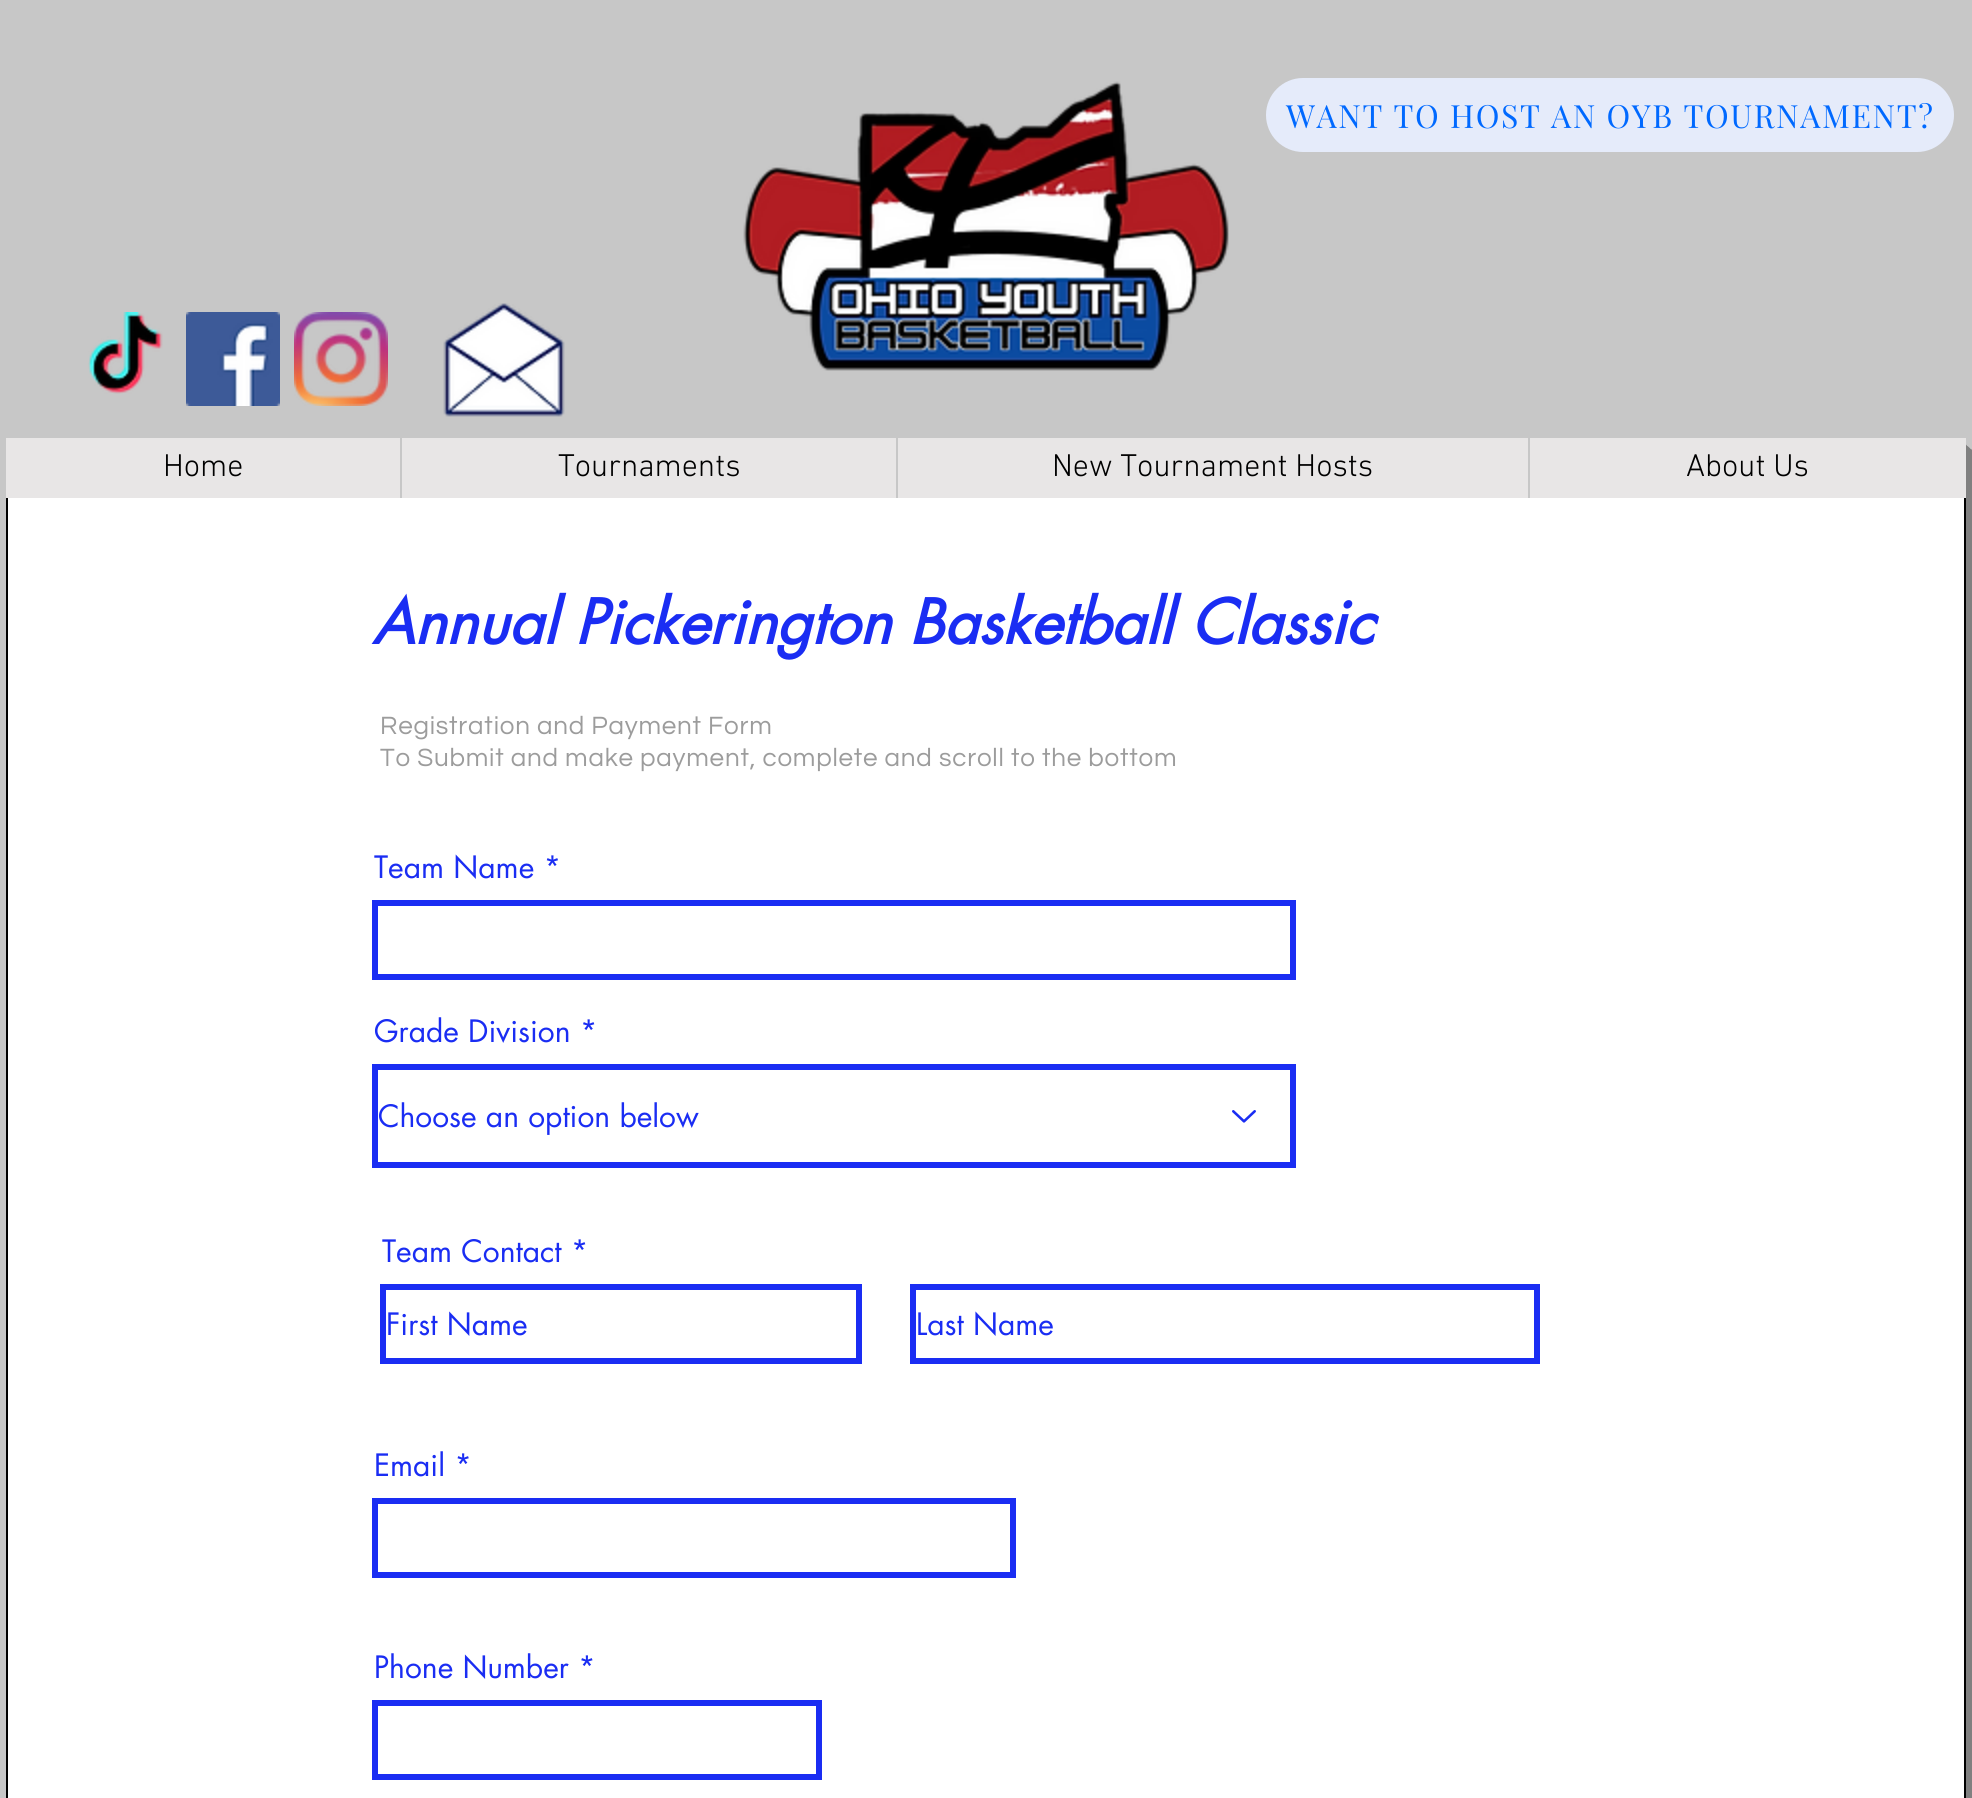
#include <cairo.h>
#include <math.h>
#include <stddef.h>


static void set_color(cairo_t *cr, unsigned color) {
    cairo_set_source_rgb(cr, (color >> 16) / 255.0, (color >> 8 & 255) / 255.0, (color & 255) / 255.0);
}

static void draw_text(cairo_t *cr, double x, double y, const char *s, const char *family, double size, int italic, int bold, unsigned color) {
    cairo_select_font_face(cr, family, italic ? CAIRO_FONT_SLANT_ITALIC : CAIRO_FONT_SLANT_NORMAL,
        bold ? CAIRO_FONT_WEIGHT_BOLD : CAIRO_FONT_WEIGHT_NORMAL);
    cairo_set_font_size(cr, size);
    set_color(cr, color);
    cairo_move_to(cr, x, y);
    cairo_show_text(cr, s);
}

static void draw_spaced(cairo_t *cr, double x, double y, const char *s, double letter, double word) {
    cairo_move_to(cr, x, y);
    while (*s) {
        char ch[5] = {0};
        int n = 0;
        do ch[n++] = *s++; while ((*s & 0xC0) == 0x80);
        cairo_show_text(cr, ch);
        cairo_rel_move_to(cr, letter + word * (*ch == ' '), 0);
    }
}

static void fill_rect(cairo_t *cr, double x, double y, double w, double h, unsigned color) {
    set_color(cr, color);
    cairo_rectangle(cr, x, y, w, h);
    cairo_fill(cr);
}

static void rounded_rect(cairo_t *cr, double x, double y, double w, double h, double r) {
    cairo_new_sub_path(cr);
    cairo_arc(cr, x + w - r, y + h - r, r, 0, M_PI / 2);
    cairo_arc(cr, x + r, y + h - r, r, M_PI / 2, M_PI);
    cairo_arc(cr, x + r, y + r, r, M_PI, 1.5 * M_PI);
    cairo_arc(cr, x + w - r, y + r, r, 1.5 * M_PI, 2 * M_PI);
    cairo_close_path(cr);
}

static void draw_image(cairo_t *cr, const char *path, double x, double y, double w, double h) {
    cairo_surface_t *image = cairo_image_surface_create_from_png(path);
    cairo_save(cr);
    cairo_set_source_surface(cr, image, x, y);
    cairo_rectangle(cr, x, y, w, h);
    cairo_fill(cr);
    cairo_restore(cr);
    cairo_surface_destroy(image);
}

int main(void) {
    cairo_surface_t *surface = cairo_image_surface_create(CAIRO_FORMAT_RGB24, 1972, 1798);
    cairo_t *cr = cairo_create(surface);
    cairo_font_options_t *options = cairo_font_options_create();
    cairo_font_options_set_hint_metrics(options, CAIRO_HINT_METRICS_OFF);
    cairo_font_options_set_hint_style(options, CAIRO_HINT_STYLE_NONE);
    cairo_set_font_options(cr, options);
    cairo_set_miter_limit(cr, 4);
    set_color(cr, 0xC7C7C7);
    cairo_paint(cr);
    draw_image(cr, "assets/img1.png", 743, 81, 486, 290);
    set_color(cr, 0xE5EBFA);
    rounded_rect(cr, 1266, 78, 688, 74, 37);
    cairo_fill(cr);
    cairo_select_font_face(cr, "Playfair Display", CAIRO_FONT_SLANT_NORMAL, CAIRO_FONT_WEIGHT_NORMAL);
    cairo_set_font_size(cr, 32);
    set_color(cr, 0x0069FF);
    draw_spaced(cr, 1286, 128, "WANT TO HOST AN OYB TOURNAMENT?", 1.6, 0);
    draw_image(cr, "assets/img2.png", 88, 312, 75, 82);
    draw_image(cr, "assets/img3.png", 186, 312, 94, 94);
    draw_image(cr, "assets/img4.png", 294, 312, 94, 94);
    draw_image(cr, "assets/img5.png", 443, 303, 122, 114);
    set_color(cr, 0x808080);
    cairo_new_path(cr);
    cairo_move_to(cr, 16, 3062);
    cairo_curve_to(cr, 16, 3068, 20, 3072, 26, 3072);
    cairo_line_to(cr, 1966, 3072);
    cairo_curve_to(cr, 1972, 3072, 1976, 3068, 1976, 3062);
    cairo_line_to(cr, 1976, 458);
    cairo_curve_to(cr, 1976, 452, 1972, 448, 1966, 448);
    cairo_line_to(cr, 1966, 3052);
    cairo_curve_to(cr, 1966, 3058, 1962, 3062, 1956, 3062);
    cairo_close_path(cr);
    cairo_fill(cr);
    cairo_new_path(cr);
    cairo_move_to(cr, 13, 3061);
    cairo_curve_to(cr, 14, 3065, 18, 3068, 22, 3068);
    cairo_line_to(cr, 1962, 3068);
    cairo_curve_to(cr, 1968, 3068, 1972, 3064, 1972, 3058);
    cairo_line_to(cr, 1972, 454);
    cairo_curve_to(cr, 1972, 450, 1969, 446, 1965, 445);
    cairo_line_to(cr, 1966, 448);
    cairo_line_to(cr, 1966, 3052);
    cairo_curve_to(cr, 1966, 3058, 1962, 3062, 1956, 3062);
    cairo_line_to(cr, 16, 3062);
    cairo_close_path(cr);
    cairo_fill(cr);
    cairo_new_path(cr);
    cairo_move_to(cr, 10, 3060);
    cairo_curve_to(cr, 12, 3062, 15, 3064, 18, 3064);
    cairo_line_to(cr, 1958, 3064);
    cairo_curve_to(cr, 1964, 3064, 1968, 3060, 1968, 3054);
    cairo_line_to(cr, 1968, 450);
    cairo_curve_to(cr, 1968, 447, 1966, 444, 1964, 442);
    cairo_curve_to(cr, 1965, 444, 1966, 446, 1966, 448);
    cairo_line_to(cr, 1966, 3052);
    cairo_curve_to(cr, 1966, 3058, 1962, 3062, 1956, 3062);
    cairo_line_to(cr, 16, 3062);
    cairo_curve_to(cr, 14, 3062, 12, 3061, 10, 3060);
    cairo_close_path(cr);
    cairo_fill(cr);
    fill_rect(cr, 6, 498, 1960, 1300, 0x000000);
    fill_rect(cr, 8, 498, 1956, 1300, 0xFFFFFF);
    fill_rect(cr, 6, 438, 1960, 60, 0xE8E6E6);
    draw_text(cr, 163, 476, "Home", "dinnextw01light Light", 32, 0, 0, 0x000000);
    fill_rect(cr, 400, 438, 2, 60, 0xC7C7C7);
    draw_text(cr, 558, 476, "Tournaments", "dinnextw01light Light", 32, 0, 0, 0x000000);
    fill_rect(cr, 896, 438, 2, 60, 0xC7C7C7);
    draw_text(cr, 1052, 476, "New Tournament Hosts", "dinnextw01light Light", 32, 0, 0, 0x000000);
    fill_rect(cr, 1528, 438, 2, 60, 0xC7C7C7);
    draw_text(cr, 1686, 476, "About Us", "dinnextw01light Light", 32, 0, 0, 0x000000);
    draw_text(cr, 372, 644, "Annual Pickerington Basketball Classic", "futura", 60, 1, 1, 0x1A2DF3);
    cairo_select_font_face(cr, "Questrial", CAIRO_FONT_SLANT_NORMAL, CAIRO_FONT_WEIGHT_NORMAL);
    cairo_set_font_size(cr, 26);
    set_color(cr, 0x9C9C9C);
    draw_spaced(cr, 380, 734, "Registration and Payment Form", 0.78, 0);
    draw_spaced(cr, 380, 766, "To Submit and make payment, complete and scroll to the bottom", 0.78, 0);
    draw_text(cr, 374, 878, "Team Name *", "futura", 30, 0, 0, 0x1A2DF3);
    cairo_rectangle(cr, 375, 903, 918, 74);
    cairo_set_line_width(cr, 6);
    cairo_stroke(cr);
    draw_text(cr, 374, 1042, "Grade Division *", "futura", 30, 0, 0, 0x1A2DF3);
    cairo_rectangle(cr, 375, 1067, 918, 98);
    cairo_stroke(cr);
    draw_text(cr, 378, 1127, "Choose an option below", "futura", 30, 0, 0, 0x1A2DF3);
    draw_image(cr, "assets/img6.png", 1232, 1110, 24, 13);
    draw_text(cr, 382, 1262, "Team Contact *", "futura", 30, 0, 0, 0x1A2DF3);
    cairo_rectangle(cr, 383, 1287, 476, 74);
    cairo_stroke(cr);
    draw_text(cr, 386, 1335, "First Name", "futura", 30, 0, 0, 0x1A2DF3);
    cairo_rectangle(cr, 913, 1287, 624, 74);
    cairo_stroke(cr);
    draw_text(cr, 916, 1335, "Last Name", "futura", 30, 0, 0, 0x1A2DF3);
    draw_text(cr, 374, 1476, "Email *", "futura", 30, 0, 0, 0x1A2DF3);
    cairo_rectangle(cr, 375, 1501, 638, 74);
    cairo_stroke(cr);
    draw_text(cr, 374, 1678, "Phone Number *", "futura", 30, 0, 0, 0x1A2DF3);
    cairo_rectangle(cr, 375, 1703, 444, 74);
    cairo_stroke(cr);
    cairo_surface_write_to_png(surface, "output.png");
    cairo_font_options_destroy(options);
    cairo_destroy(cr);
    cairo_surface_destroy(surface);
    return 0;
}
